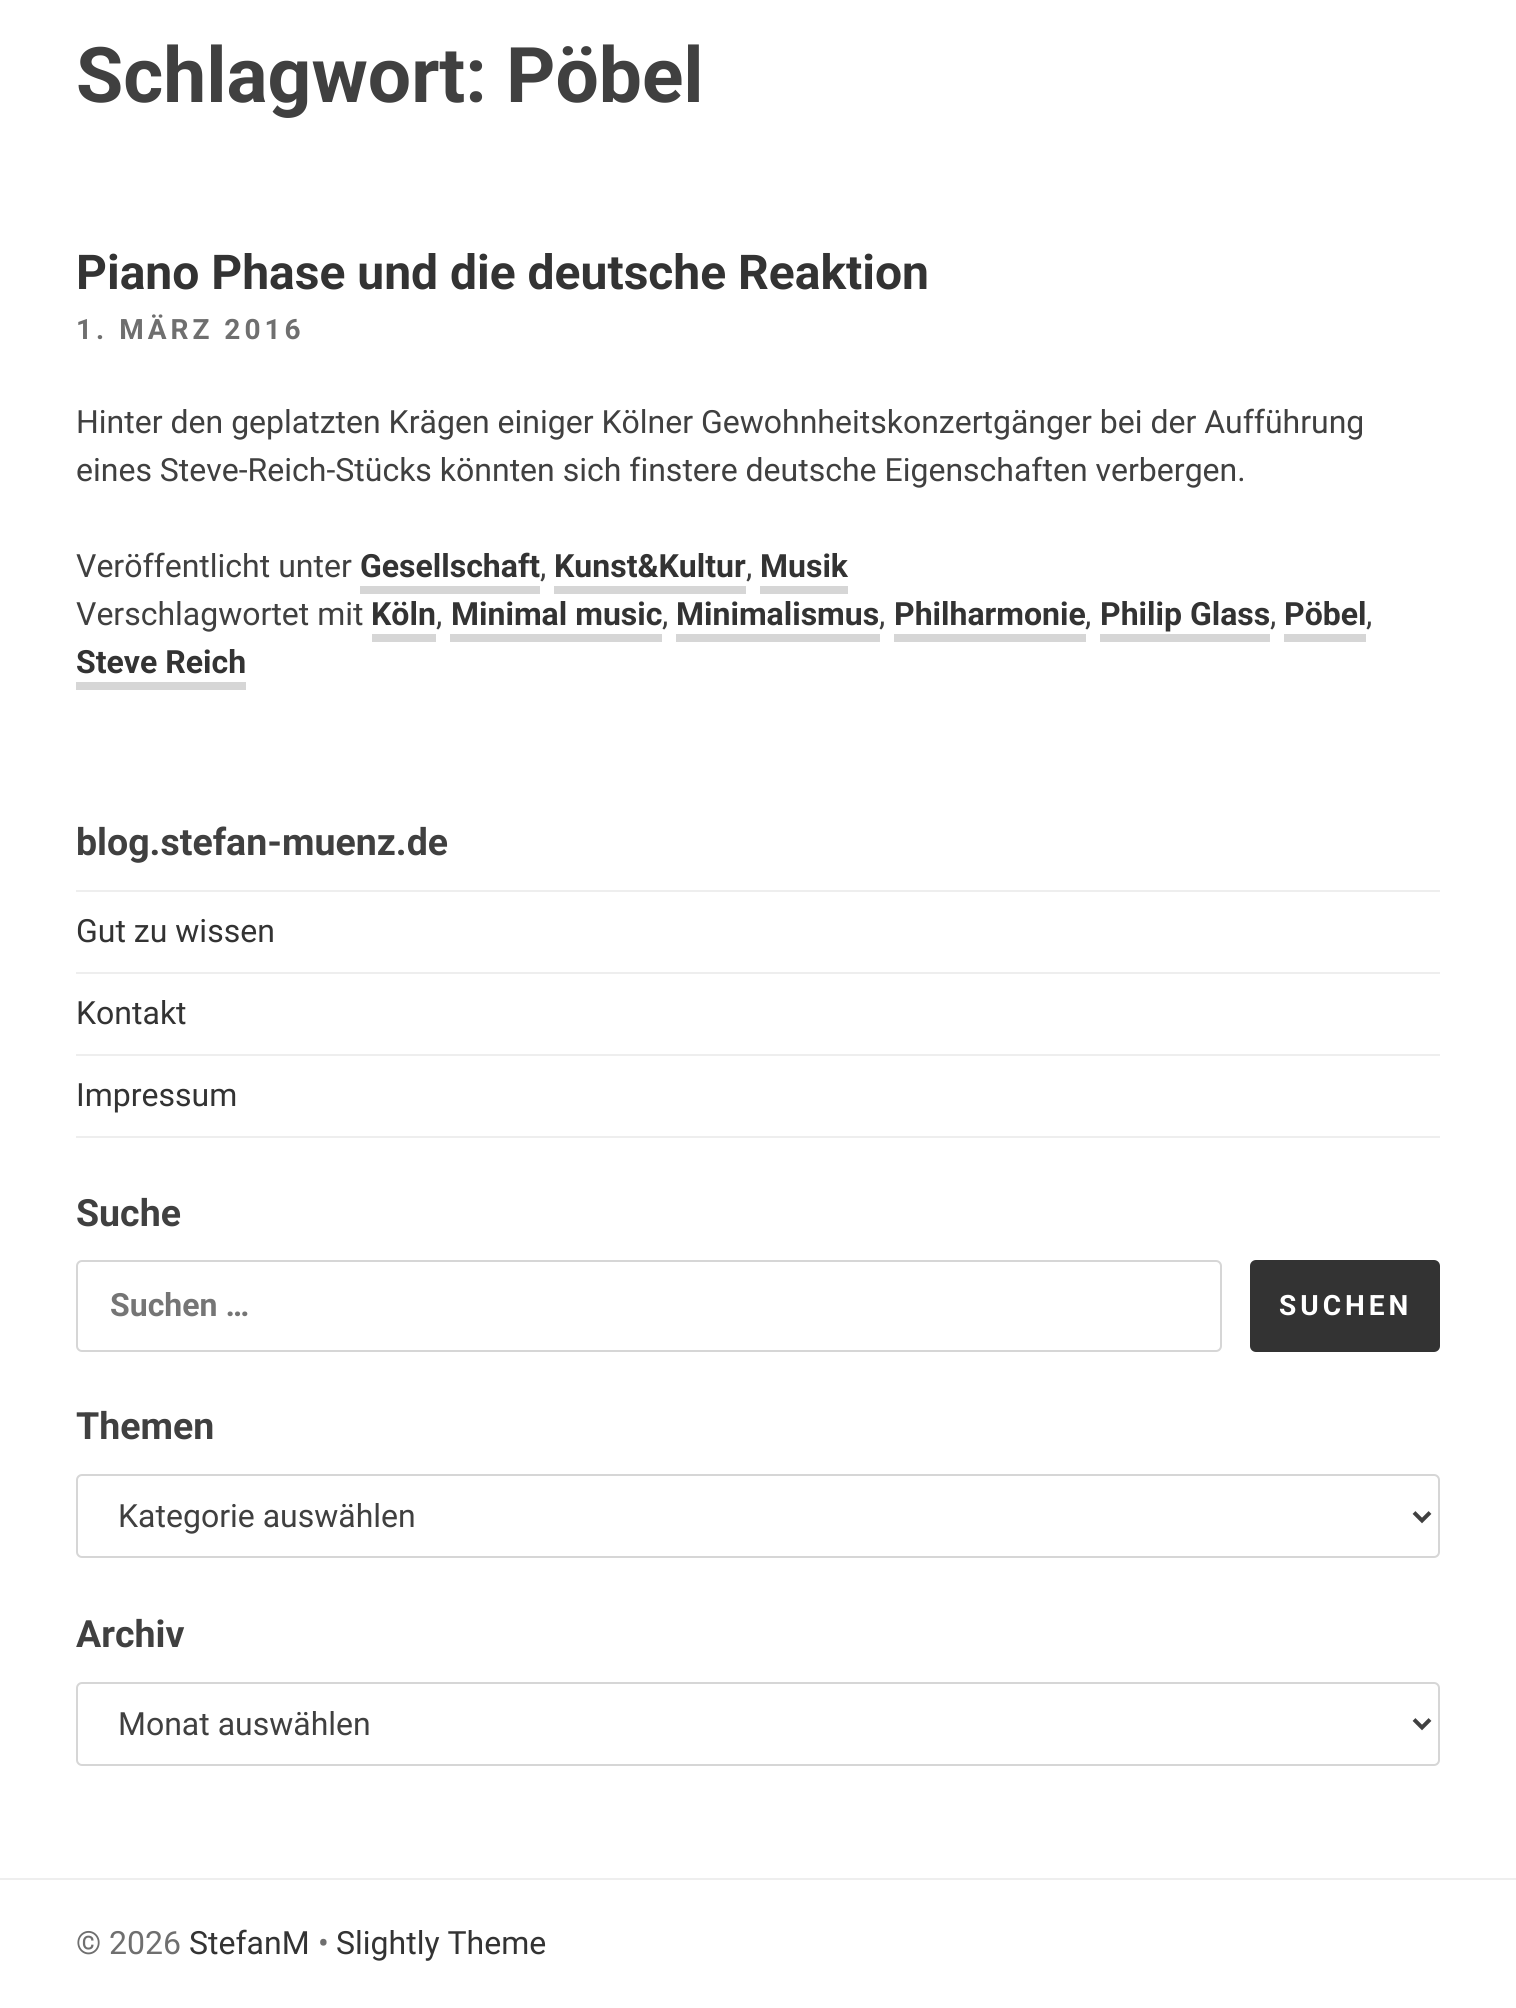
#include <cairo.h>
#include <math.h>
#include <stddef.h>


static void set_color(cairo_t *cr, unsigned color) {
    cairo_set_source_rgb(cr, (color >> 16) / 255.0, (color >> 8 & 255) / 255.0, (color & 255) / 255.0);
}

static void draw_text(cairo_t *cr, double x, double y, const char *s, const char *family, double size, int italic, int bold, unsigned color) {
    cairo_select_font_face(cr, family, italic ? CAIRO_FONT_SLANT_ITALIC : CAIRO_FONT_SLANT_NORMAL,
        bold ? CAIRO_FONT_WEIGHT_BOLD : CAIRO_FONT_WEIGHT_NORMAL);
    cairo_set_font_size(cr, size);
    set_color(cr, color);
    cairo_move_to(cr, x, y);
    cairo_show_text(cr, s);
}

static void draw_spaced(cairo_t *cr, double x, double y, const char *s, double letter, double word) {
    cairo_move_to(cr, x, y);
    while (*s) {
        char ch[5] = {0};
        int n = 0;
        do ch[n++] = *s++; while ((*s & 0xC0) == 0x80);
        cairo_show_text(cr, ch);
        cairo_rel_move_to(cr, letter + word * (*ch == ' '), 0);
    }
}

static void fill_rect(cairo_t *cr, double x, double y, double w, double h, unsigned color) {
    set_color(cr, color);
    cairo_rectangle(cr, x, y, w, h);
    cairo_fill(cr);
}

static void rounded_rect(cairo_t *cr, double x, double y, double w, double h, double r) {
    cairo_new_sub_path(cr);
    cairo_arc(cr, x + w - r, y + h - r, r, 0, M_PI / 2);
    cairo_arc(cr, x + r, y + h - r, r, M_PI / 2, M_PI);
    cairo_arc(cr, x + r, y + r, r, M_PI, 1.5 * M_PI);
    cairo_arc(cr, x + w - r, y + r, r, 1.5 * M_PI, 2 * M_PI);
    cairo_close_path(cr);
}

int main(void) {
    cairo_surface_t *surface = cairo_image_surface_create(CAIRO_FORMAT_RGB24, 1516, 2008);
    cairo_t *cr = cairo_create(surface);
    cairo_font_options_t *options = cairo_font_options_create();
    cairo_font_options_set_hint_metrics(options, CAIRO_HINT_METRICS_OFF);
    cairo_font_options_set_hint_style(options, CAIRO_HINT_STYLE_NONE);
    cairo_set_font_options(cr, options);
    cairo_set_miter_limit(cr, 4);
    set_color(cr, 0xFFFFFF);
    cairo_paint(cr);
    draw_text(cr, 76, 102, "Schlagwort: Pöbel", "Roboto", 76.75, 0, 1, 0x404040);
    draw_text(cr, 76, 289, "Piano Phase und die deutsche Reaktion", "Roboto", 48, 0, 1, 0x333333);
    cairo_set_font_size(cr, 28);
    set_color(cr, 0x6F6F6F);
    draw_spaced(cr, 76, 339, "1. MÄRZ 2016", 4, 0);
    draw_text(cr, 76, 433, "Hinter den geplatzten Krägen einiger Kölner Gewohnheitskonzertgänger bei der Aufführung", "Roboto", 32, 0, 0, 0x404040);
    draw_text(cr, 76, 481, "eines Steve-Reich-Stücks könnten sich finstere deutsche Eigenschaften verbergen.", "Roboto", 32, 0, 0, 0x404040);
    draw_text(cr, 76, 577, "Veröffentlicht unter", "Roboto", 32, 0, 0, 0x404040);
    draw_text(cr, 360, 577, "Gesellschaft", "Roboto", 32, 0, 1, 0x333333);
    fill_rect(cr, 360, 586, 180, 8, 0xD6D6D6);
    draw_text(cr, 540, 577, ",", "Roboto", 32, 0, 0, 0x404040);
    draw_text(cr, 554, 577, "Kunst&Kultur", "Roboto", 32, 0, 1, 0x333333);
    fill_rect(cr, 554, 586, 192, 8, 0xD6D6D6);
    draw_text(cr, 746, 577, ",", "Roboto", 32, 0, 0, 0x404040);
    draw_text(cr, 760, 577, "Musik", "Roboto", 32, 0, 1, 0x333333);
    fill_rect(cr, 760, 586, 88, 8, 0xD6D6D6);
    draw_text(cr, 76, 625, "Verschlagwortet mit", "Roboto", 32, 0, 0, 0x404040);
    draw_text(cr, 371, 625, "Köln", "Roboto", 32, 0, 1, 0x333333);
    fill_rect(cr, 372, 634, 64, 8, 0xD6D6D6);
    draw_text(cr, 436, 625, ",", "Roboto", 32, 0, 0, 0x404040);
    draw_text(cr, 451, 625, "Minimal music", "Roboto", 32, 0, 1, 0x333333);
    fill_rect(cr, 450, 634, 212, 8, 0xD6D6D6);
    draw_text(cr, 662, 625, ",", "Roboto", 32, 0, 0, 0x404040);
    draw_text(cr, 676, 625, "Minimalismus", "Roboto", 32, 0, 1, 0x333333);
    fill_rect(cr, 676, 634, 204, 8, 0xD6D6D6);
    draw_text(cr, 879, 625, ",", "Roboto", 32, 0, 0, 0x404040);
    draw_text(cr, 894, 625, "Philharmonie", "Roboto", 32, 0, 1, 0x333333);
    fill_rect(cr, 894, 634, 192, 8, 0xD6D6D6);
    draw_text(cr, 1085, 625, ",", "Roboto", 32, 0, 0, 0x404040);
    draw_text(cr, 1100, 625, "Philip Glass", "Roboto", 32, 0, 1, 0x333333);
    fill_rect(cr, 1100, 634, 170, 8, 0xD6D6D6);
    draw_text(cr, 1270, 625, ",", "Roboto", 32, 0, 0, 0x404040);
    draw_text(cr, 1284, 625, "Pöbel", "Roboto", 32, 0, 1, 0x333333);
    fill_rect(cr, 1284, 634, 82, 8, 0xD6D6D6);
    draw_text(cr, 1366, 625, ",", "Roboto", 32, 0, 0, 0x404040);
    draw_text(cr, 76, 673, "Steve Reich", "Roboto", 32, 0, 1, 0x333333);
    fill_rect(cr, 76, 682, 170, 8, 0xD6D6D6);
    draw_text(cr, 76, 855, "blog.stefan-muenz.de", "Roboto", 37.5, 0, 1, 0x404040);
    fill_rect(cr, 76, 890, 1364, 2, 0xEEEEEE);
    fill_rect(cr, 76, 972, 1364, 2, 0xEEEEEE);
    draw_text(cr, 76, 942, "Gut zu wissen", "Roboto", 32, 0, 0, 0x333333);
    fill_rect(cr, 76, 1054, 1364, 2, 0xEEEEEE);
    draw_text(cr, 76, 1024, "Kontakt", "Roboto", 32, 0, 0, 0x333333);
    fill_rect(cr, 76, 1136, 1364, 2, 0xEEEEEE);
    draw_text(cr, 76, 1106, "Impressum", "Roboto", 32, 0, 0, 0x333333);
    draw_text(cr, 76, 1226, "Suche", "Roboto", 37.5, 0, 1, 0x404040);
    rounded_rect(cr, 77, 1261, 1144, 90, 5);
    set_color(cr, 0xD6D6D6);
    cairo_stroke(cr);
    draw_text(cr, 110, 1316, "Suchen …", "Roboto", 32, 0, 1, 0x757575);
    set_color(cr, 0x333333);
    rounded_rect(cr, 1250, 1260, 190, 92, 6);
    cairo_fill(cr);
    cairo_set_font_size(cr, 28);
    set_color(cr, 0xFFFFFF);
    draw_spaced(cr, 1279, 1315, "SUCHEN", 4, 0);
    draw_text(cr, 76, 1439, "Themen", "Roboto", 37.5, 0, 1, 0x404040);
    rounded_rect(cr, 77, 1475, 1362, 82, 5);
    set_color(cr, 0xD6D6D6);
    cairo_stroke(cr);
    cairo_new_path(cr);
    cairo_move_to(cr, 1414, 1512.5);
    cairo_line_to(cr, 1422, 1520.5);
    cairo_line_to(cr, 1430, 1512.5);
    set_color(cr, 0x404040);
    cairo_set_line_width(cr, 4);
    cairo_stroke(cr);
    draw_text(cr, 118, 1527, "Kategorie auswählen", "Roboto", 32, 0, 0, 0x404040);
    draw_text(cr, 76, 1647, "Archiv", "Roboto", 37.5, 0, 1, 0x404040);
    rounded_rect(cr, 77, 1683, 1362, 82, 5);
    set_color(cr, 0xD6D6D6);
    cairo_set_line_width(cr, 2);
    cairo_stroke(cr);
    cairo_new_path(cr);
    cairo_move_to(cr, 1414, 1719.5);
    cairo_line_to(cr, 1422, 1727.5);
    cairo_line_to(cr, 1430, 1719.5);
    set_color(cr, 0x404040);
    cairo_set_line_width(cr, 4);
    cairo_stroke(cr);
    draw_text(cr, 118, 1735, "Monat auswählen", "Roboto", 32, 0, 0, 0x404040);
    fill_rect(cr, 0, 1878, 1516, 2, 0xEEEEEE);
    draw_text(cr, 76, 1954, "© 2026", "Roboto", 32, 0, 0, 0x6F6F6F);
    draw_text(cr, 189, 1954, "StefanM", "Roboto", 32, 0, 0, 0x333333);
    draw_text(cr, 318, 1954, "•", "Roboto", 32, 0, 0, 0x6F6F6F);
    draw_text(cr, 336, 1954, "Slightly Theme", "Roboto", 32, 0, 0, 0x333333);
    cairo_surface_write_to_png(surface, "output.png");
    cairo_font_options_destroy(options);
    cairo_destroy(cr);
    cairo_surface_destroy(surface);
    return 0;
}
